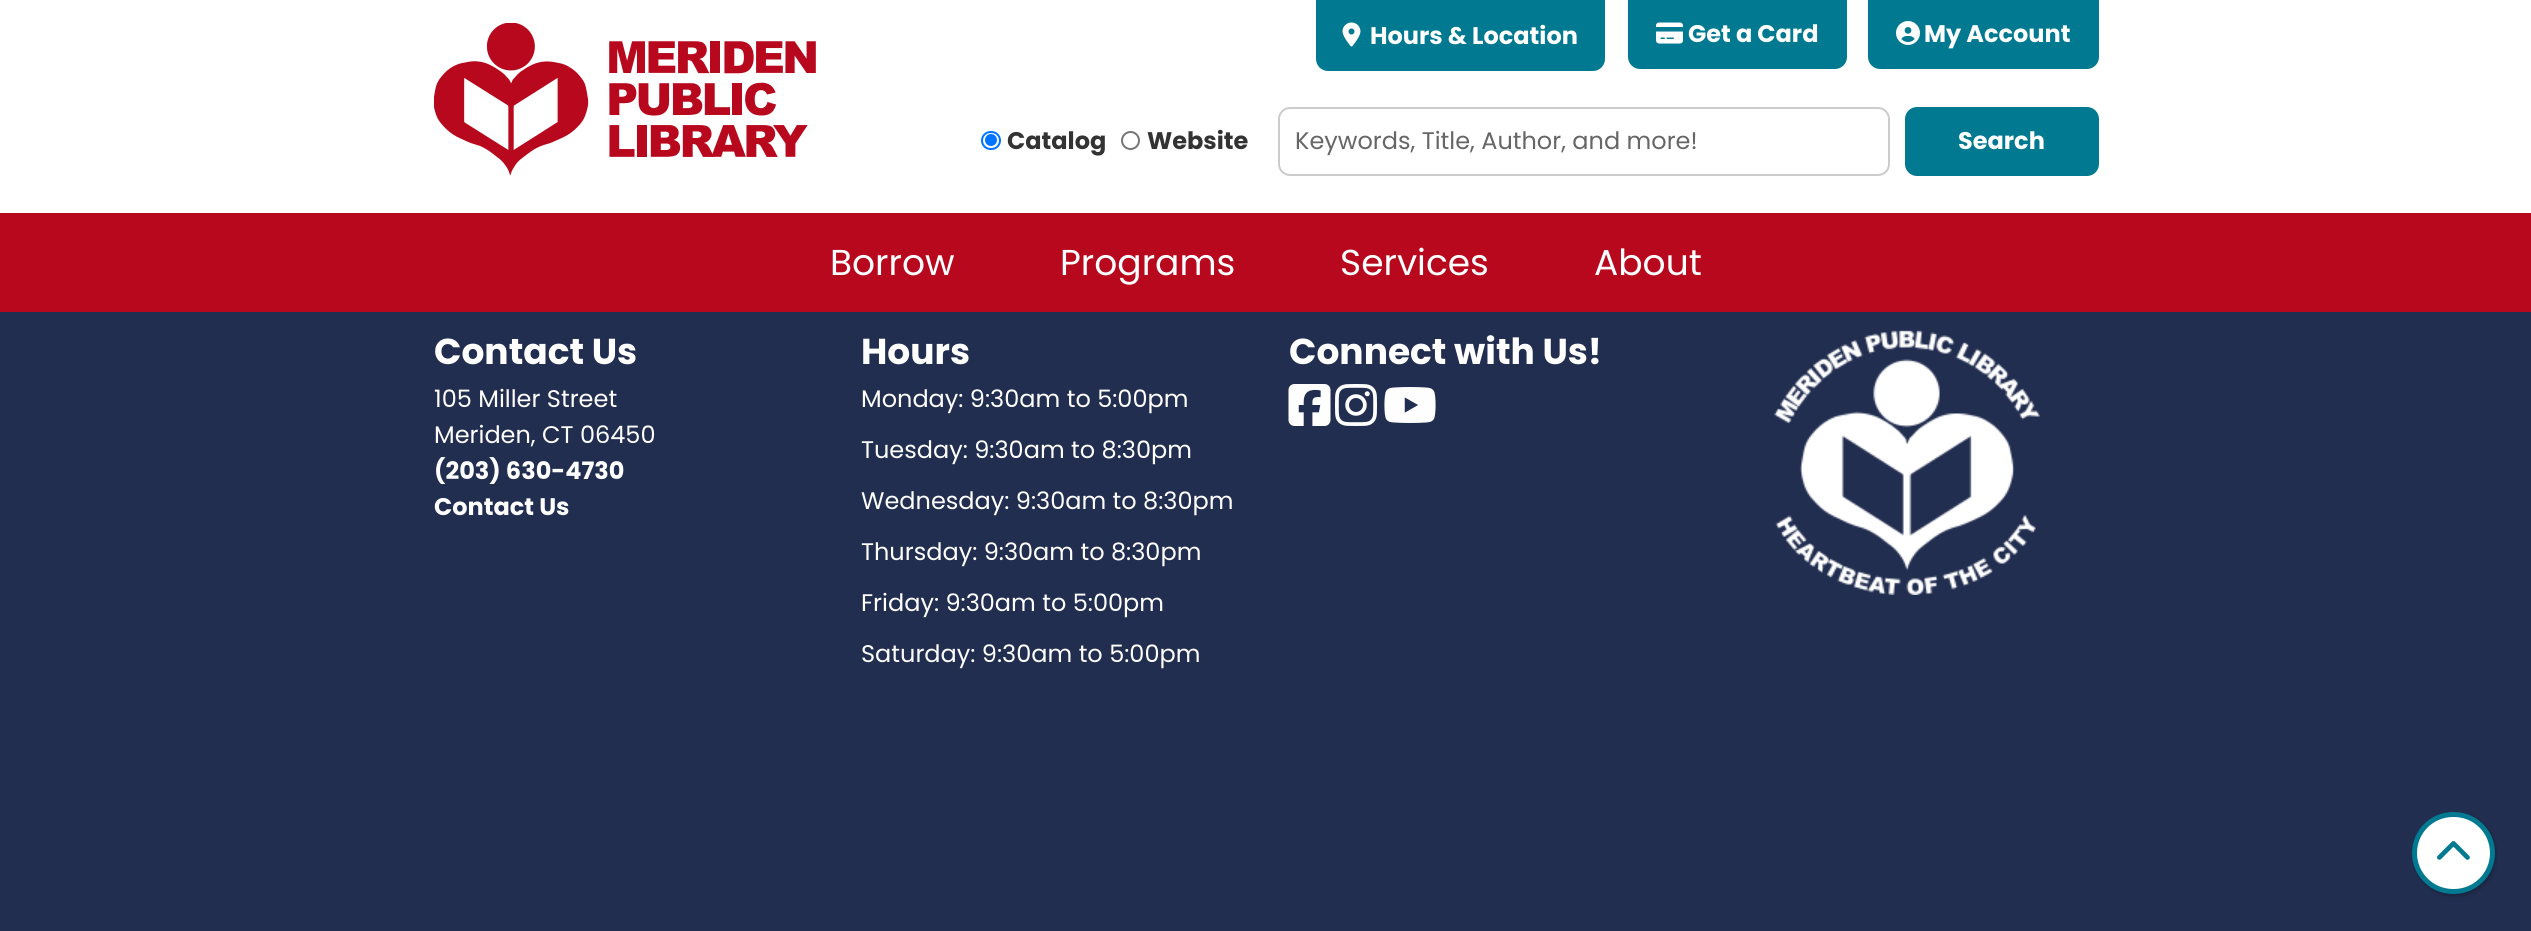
#include <cairo.h>
#include <math.h>
#include <stddef.h>


static void set_color(cairo_t *cr, unsigned color) {
    cairo_set_source_rgb(cr, (color >> 16) / 255.0, (color >> 8 & 255) / 255.0, (color & 255) / 255.0);
}

static void draw_text(cairo_t *cr, double x, double y, const char *s, const char *family, double size, int italic, int bold, unsigned color) {
    cairo_select_font_face(cr, family, italic ? CAIRO_FONT_SLANT_ITALIC : CAIRO_FONT_SLANT_NORMAL,
        bold ? CAIRO_FONT_WEIGHT_BOLD : CAIRO_FONT_WEIGHT_NORMAL);
    cairo_set_font_size(cr, size);
    set_color(cr, color);
    cairo_move_to(cr, x, y);
    cairo_show_text(cr, s);
}

static void fill_rect(cairo_t *cr, double x, double y, double w, double h, unsigned color) {
    set_color(cr, color);
    cairo_rectangle(cr, x, y, w, h);
    cairo_fill(cr);
}

static void rounded_rect(cairo_t *cr, double x, double y, double w, double h, double r) {
    cairo_new_sub_path(cr);
    cairo_arc(cr, x + w - r, y + h - r, r, 0, M_PI / 2);
    cairo_arc(cr, x + r, y + h - r, r, M_PI / 2, M_PI);
    cairo_arc(cr, x + r, y + r, r, M_PI, 1.5 * M_PI);
    cairo_arc(cr, x + w - r, y + r, r, 1.5 * M_PI, 2 * M_PI);
    cairo_close_path(cr);
}

static void draw_shadow(cairo_t *cr, double x, double y, double w, double h, double r, double blur, double alpha) {
    cairo_push_group_with_content(cr, CAIRO_CONTENT_ALPHA);
    cairo_set_operator(cr, CAIRO_OPERATOR_SOURCE);
    for (int i = 15; i >= -15 && fmin(w, h) + blur * i / 3 > 0; i -= 2) {
        double e = blur * i / 6;
        cairo_set_source_rgba(cr, 0, 0, 0, alpha * erfc((i - 1) / 8.5) / 2);
        rounded_rect(cr, x - e, y - e, w + 2 * e, h + 2 * e, fmax(0, fmin(r + e + blur * .6, fmin(w, h) / 2 + e)));
        cairo_fill(cr);
    }
    cairo_pattern_t *soft = cairo_pop_group(cr);
    cairo_mask(cr, soft);
    cairo_pattern_destroy(soft);
}

static void draw_image(cairo_t *cr, const char *path, double x, double y, double w, double h) {
    cairo_surface_t *image = cairo_image_surface_create_from_png(path);
    cairo_save(cr);
    cairo_set_source_surface(cr, image, x, y);
    cairo_rectangle(cr, x, y, w, h);
    cairo_fill(cr);
    cairo_restore(cr);
    cairo_surface_destroy(image);
}

int main(void) {
    cairo_surface_t *surface = cairo_image_surface_create(CAIRO_FORMAT_RGB24, 2531, 931);
    cairo_t *cr = cairo_create(surface);
    cairo_font_options_t *options = cairo_font_options_create();
    cairo_font_options_set_hint_metrics(options, CAIRO_HINT_METRICS_OFF);
    cairo_font_options_set_hint_style(options, CAIRO_HINT_STYLE_NONE);
    cairo_set_font_options(cr, options);
    cairo_set_miter_limit(cr, 4);
    set_color(cr, 0x222E50);
    cairo_paint(cr);
    fill_rect(cr, 0, 0, 2531, 213, 0xFFFFFF);
    draw_image(cr, "assets/img1.png", 434, 23, 382, 153);
    set_color(cr, 0x007991);
    cairo_new_path(cr);
    cairo_move_to(cr, 1317, 1);
    cairo_line_to(cr, 1604, 1);
    cairo_line_to(cr, 1604, 59);
    cairo_curve_to(cr, 1604, 65, 1599, 70, 1593, 70);
    cairo_line_to(cr, 1328, 70);
    cairo_curve_to(cr, 1322, 70, 1317, 65, 1317, 59);
    cairo_close_path(cr);
    cairo_fill_preserve(cr);
    cairo_stroke(cr);
    draw_image(cr, "assets/img2.png", 1342, 22, 19, 25);
    draw_text(cr, 1370, 44, "Hours & Location", "Poppins", 24, 0, 1, 0xFFFFFF);
    set_color(cr, 0x007991);
    cairo_new_path(cr);
    cairo_move_to(cr, 1629, 1);
    cairo_line_to(cr, 1846, 1);
    cairo_line_to(cr, 1846, 57);
    cairo_curve_to(cr, 1846, 63, 1841, 68, 1835, 68);
    cairo_line_to(cr, 1640, 68);
    cairo_curve_to(cr, 1634, 68, 1629, 63, 1629, 57);
    cairo_close_path(cr);
    cairo_fill_preserve(cr);
    cairo_stroke(cr);
    draw_image(cr, "assets/img3.png", 1656, 22, 27, 22);
    draw_text(cr, 1688, 42, "Get a Card", "Poppins", 24, 0, 1, 0xFFFFFF);
    set_color(cr, 0x007991);
    cairo_new_path(cr);
    cairo_move_to(cr, 1869, 1);
    cairo_line_to(cr, 2098, 1);
    cairo_line_to(cr, 2098, 57);
    cairo_curve_to(cr, 2098, 63, 2093, 68, 2087, 68);
    cairo_line_to(cr, 1880, 68);
    cairo_curve_to(cr, 1874, 68, 1869, 63, 1869, 57);
    cairo_close_path(cr);
    cairo_fill_preserve(cr);
    cairo_stroke(cr);
    draw_image(cr, "assets/img4.png", 1896, 21, 24, 24);
    draw_text(cr, 1924, 42, "My Account", "Poppins", 24, 0, 1, 0xFFFFFF);
    rounded_rect(cr, 982, 132, 18, 17, 8.5);
    set_color(cr, 0x0075FF);
    cairo_stroke(cr);
    cairo_arc(cr, 991, 140, 6, 0, 2 * M_PI);
    cairo_fill(cr);
    draw_text(cr, 1007, 149, "Catalog", "Poppins", 24, 0, 1, 0x333333);
    cairo_new_path(cr);
    cairo_arc(cr, 1130.5, 140.5, 8.5, 0, 2 * M_PI);
    set_color(cr, 0x767676);
    cairo_stroke(cr);
    draw_text(cr, 1147, 149, "Website", "Poppins", 24, 0, 1, 0x333333);
    rounded_rect(cr, 1279, 108, 610, 67, 11);
    set_color(cr, 0xCCCCCC);
    cairo_stroke(cr);
    draw_text(cr, 1295, 149, "Keywords, Title, Author, and more!", "Poppins", 24, 0, 0, 0x666666);
    set_color(cr, 0x007991);
    rounded_rect(cr, 1906, 108, 192, 67, 11);
    cairo_fill_preserve(cr);
    cairo_stroke(cr);
    draw_text(cr, 1958, 149, "Search", "Poppins", 24, 0, 1, 0xFFFFFF);
    fill_rect(cr, 0, 213, 2531, 99, 0xB8081D);
    draw_text(cr, 830, 275, "Borrow", "Poppins", 36, 0, 0, 0xFFFFFF);
    draw_text(cr, 1060, 275, "Programs", "Poppins", 36, 0, 0, 0xFFFFFF);
    draw_text(cr, 1340, 275, "Services", "Poppins", 36, 0, 0, 0xFFFFFF);
    draw_text(cr, 1594, 275, "About", "Poppins", 36, 0, 0, 0xFFFFFF);
    draw_text(cr, 434, 364, "Contact Us", "Poppins", 36, 0, 1, 0xFFFFFF);
    draw_text(cr, 434, 407, "105 Miller Street", "Poppins", 24, 0, 0, 0xFFFFFF);
    draw_text(cr, 434, 443, "Meriden, CT 06450", "Poppins", 24, 0, 0, 0xFFFFFF);
    draw_text(cr, 434, 479, "(203) 630-4730", "Poppins", 24, 0, 1, 0xFFFFFF);
    draw_text(cr, 434, 515, "Contact Us", "Poppins", 24, 0, 1, 0xFFFFFF);
    draw_text(cr, 861, 364, "Hours", "Poppins", 36, 0, 1, 0xFFFFFF);
    draw_text(cr, 861, 407, "Monday: 9:30am to 5:00pm", "Poppins", 24, 0, 0, 0xFFFFFF);
    draw_text(cr, 861, 458, "Tuesday: 9:30am to 8:30pm", "Poppins", 24, 0, 0, 0xFFFFFF);
    draw_text(cr, 861, 509, "Wednesday: 9:30am to 8:30pm", "Poppins", 24, 0, 0, 0xFFFFFF);
    draw_text(cr, 861, 560, "Thursday: 9:30am to 8:30pm", "Poppins", 24, 0, 0, 0xFFFFFF);
    draw_text(cr, 861, 611, "Friday: 9:30am to 5:00pm", "Poppins", 24, 0, 0, 0xFFFFFF);
    draw_text(cr, 861, 662, "Saturday: 9:30am to 5:00pm", "Poppins", 24, 0, 0, 0xFFFFFF);
    draw_text(cr, 1289, 364, "Connect with Us!", "Poppins", 36, 0, 1, 0xFFFFFF);
    draw_image(cr, "assets/img5.png", 1288, 384, 43, 42);
    draw_image(cr, "assets/img6.png", 1335, 384, 42, 42);
    draw_image(cr, "assets/img7.png", 1384, 387, 52, 36);
    draw_image(cr, "assets/img8.png", 1774, 330, 266, 265);
    set_color(cr, 0x000000);
    draw_shadow(cr, 2414, 813, 82, 83, 41, 2, 0.25);
    set_color(cr, 0xFFFFFF);
    rounded_rect(cr, 2414.5, 814.5, 78, 77, 38.5);
    cairo_fill_preserve(cr);
    set_color(cr, 0x007991);
    cairo_set_line_width(cr, 5);
    cairo_stroke(cr);
    draw_image(cr, "assets/img9.png", 2437, 841, 33, 19);
    cairo_surface_write_to_png(surface, "output.png");
    cairo_font_options_destroy(options);
    cairo_destroy(cr);
    cairo_surface_destroy(surface);
    return 0;
}
